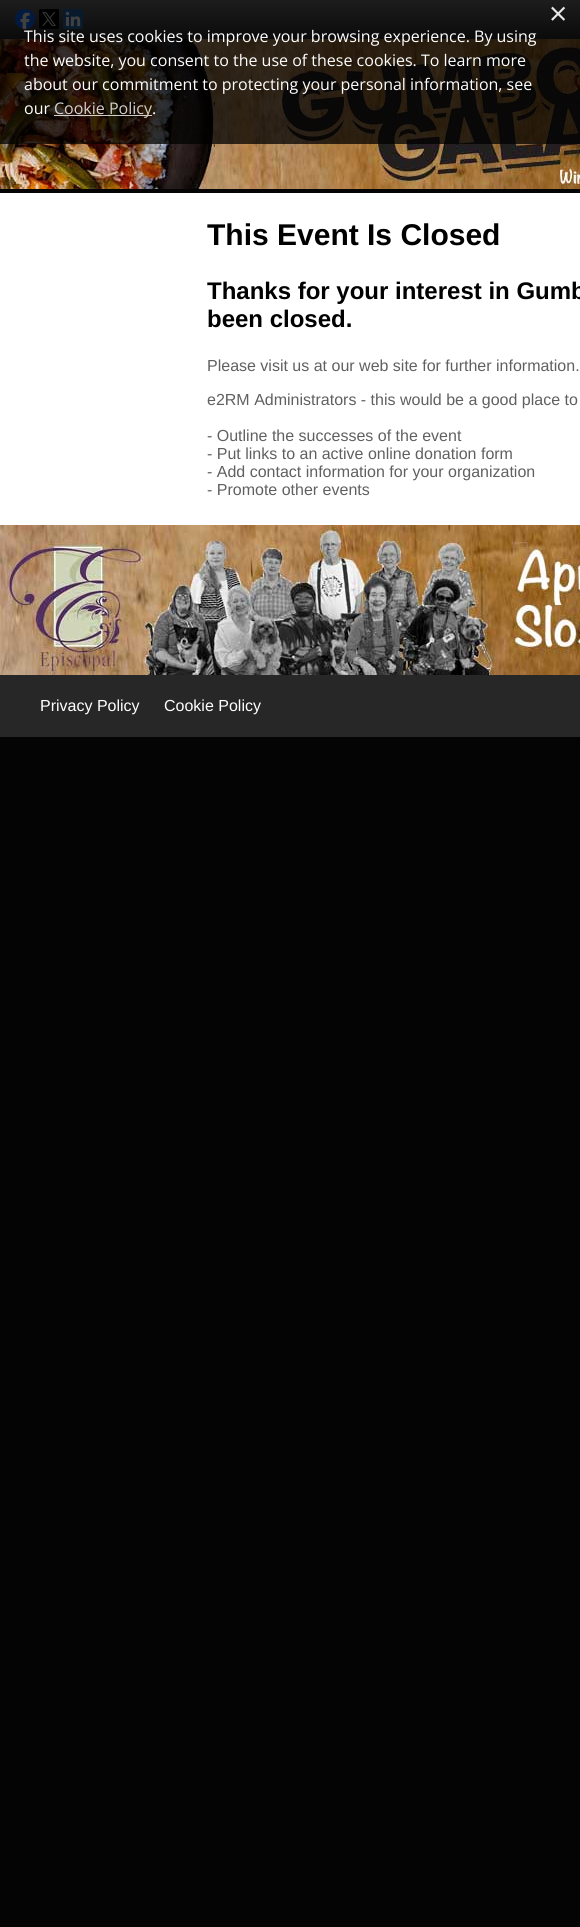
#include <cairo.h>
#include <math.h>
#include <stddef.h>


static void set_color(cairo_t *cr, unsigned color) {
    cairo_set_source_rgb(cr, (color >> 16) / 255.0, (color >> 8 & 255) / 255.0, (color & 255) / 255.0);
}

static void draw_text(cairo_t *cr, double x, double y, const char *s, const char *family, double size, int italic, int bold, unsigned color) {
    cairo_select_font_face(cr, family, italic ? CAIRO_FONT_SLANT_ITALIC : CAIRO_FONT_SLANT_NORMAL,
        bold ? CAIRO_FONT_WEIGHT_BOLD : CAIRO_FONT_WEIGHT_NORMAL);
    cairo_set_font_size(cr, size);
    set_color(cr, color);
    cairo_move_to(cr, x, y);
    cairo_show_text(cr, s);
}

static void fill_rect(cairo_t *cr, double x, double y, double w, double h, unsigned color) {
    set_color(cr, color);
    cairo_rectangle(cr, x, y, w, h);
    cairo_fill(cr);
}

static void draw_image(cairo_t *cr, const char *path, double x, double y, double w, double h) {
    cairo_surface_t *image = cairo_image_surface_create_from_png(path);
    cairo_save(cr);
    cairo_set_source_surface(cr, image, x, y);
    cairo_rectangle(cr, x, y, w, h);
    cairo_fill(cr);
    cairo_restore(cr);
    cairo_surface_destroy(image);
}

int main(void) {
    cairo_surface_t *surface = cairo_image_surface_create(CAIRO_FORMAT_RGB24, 580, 1927);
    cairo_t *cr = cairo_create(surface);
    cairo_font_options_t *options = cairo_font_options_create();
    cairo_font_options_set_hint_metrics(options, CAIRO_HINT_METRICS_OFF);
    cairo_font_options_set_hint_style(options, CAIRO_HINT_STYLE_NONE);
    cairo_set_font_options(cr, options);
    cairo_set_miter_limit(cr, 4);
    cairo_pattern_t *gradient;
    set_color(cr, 0x050405);
    cairo_paint(cr);
    gradient = cairo_pattern_create_linear(500, 0, 500, 39);
    cairo_pattern_add_color_stop_rgba(gradient, 0, 0.451, 0.451, 0.451, 1);
    cairo_pattern_add_color_stop_rgba(gradient, 1, 0.165, 0.165, 0.165, 1);
    cairo_set_source(cr, gradient);
    cairo_pattern_destroy(gradient);
    cairo_rectangle(cr, 0, 0, 580, 39);
    cairo_fill(cr);
    draw_image(cr, "assets/img1.png", 15, 9, 20, 20);
    draw_image(cr, "assets/img2.png", 39, 9, 20, 20);
    draw_image(cr, "assets/img3.png", 63, 9, 20, 20);
    draw_image(cr, "assets/img4.png", 0, 39, 580, 150);
    cairo_set_source_rgba(cr, 0, 0, 0, 0.75);
    cairo_rectangle(cr, 0, 0, 580, 144);
    cairo_fill(cr);
    draw_text(cr, 549, 25, "×", "Open Sans", 32, 0, 0, 0xE8E8E8);
    draw_text(cr, 24, 42, "This site uses cookies to improve your browsing experience. By using", "Open Sans", 16, 0, 0, 0xFFFFFF);
    draw_text(cr, 24, 66, "the website, you consent to the use of these cookies. To learn more", "Open Sans", 16, 0, 0, 0xFFFFFF);
    draw_text(cr, 24, 90, "about our commitment to protecting your personal information, see", "Open Sans", 16, 0, 0, 0xFFFFFF);
    draw_text(cr, 24, 114, "our", "Open Sans", 16, 0, 0, 0xFFFFFF);
    cairo_set_source_rgba(cr, 1, 1, 1, 0.8);
    cairo_rectangle(cr, 54, 115, 98, 1);
    cairo_fill(cr);
    draw_text(cr, 54, 114, "Cookie Policy", "Open Sans", 16, 0, 0, 0xD3D0CE);
    draw_text(cr, 152, 114, ".", "Open Sans", 16, 0, 0, 0xFFFFFF);
    fill_rect(cr, 0, 193, 580, 332, 0xFFFFFF);
    draw_text(cr, 207, 245, "This Event Is Closed", "Liberation Sans", 30, 0, 1, 0x000000);
    draw_text(cr, 207, 299, "Thanks for your interest in Gumb", "Liberation Sans", 24, 0, 1, 0x000000);
    draw_text(cr, 207, 327, "been closed.", "Liberation Sans", 24, 0, 1, 0x000000);
    draw_text(cr, 207, 371, "Please visit us at our web site for further information.", "Liberation Sans", 16, 0, 0, 0x606060);
    draw_text(cr, 207, 405, "e2RM Administrators - this would be a good place to", "Liberation Sans", 16, 0, 0, 0x606060);
    draw_text(cr, 207, 441, "- Outline the successes of the event", "Liberation Sans", 16, 0, 0, 0x606060);
    draw_text(cr, 207, 459, "- Put links to an active online donation form", "Liberation Sans", 16, 0, 0, 0x606060);
    draw_text(cr, 207, 477, "- Add contact information for your organization", "Liberation Sans", 16, 0, 0, 0x606060);
    draw_text(cr, 207, 495, "- Promote other events", "Liberation Sans", 16, 0, 0, 0x606060);
    draw_image(cr, "assets/img5.png", 0, 525, 580, 150);
    fill_rect(cr, 0, 675, 580, 62, 0x272727);
    draw_text(cr, 40, 711, "Privacy Policy", "Liberation Sans", 16, 0, 0, 0xFFFFFF);
    draw_text(cr, 164, 711, "Cookie Policy", "Liberation Sans", 16, 0, 0, 0xFFFFFF);
    cairo_surface_write_to_png(surface, "output.png");
    cairo_font_options_destroy(options);
    cairo_destroy(cr);
    cairo_surface_destroy(surface);
    return 0;
}
